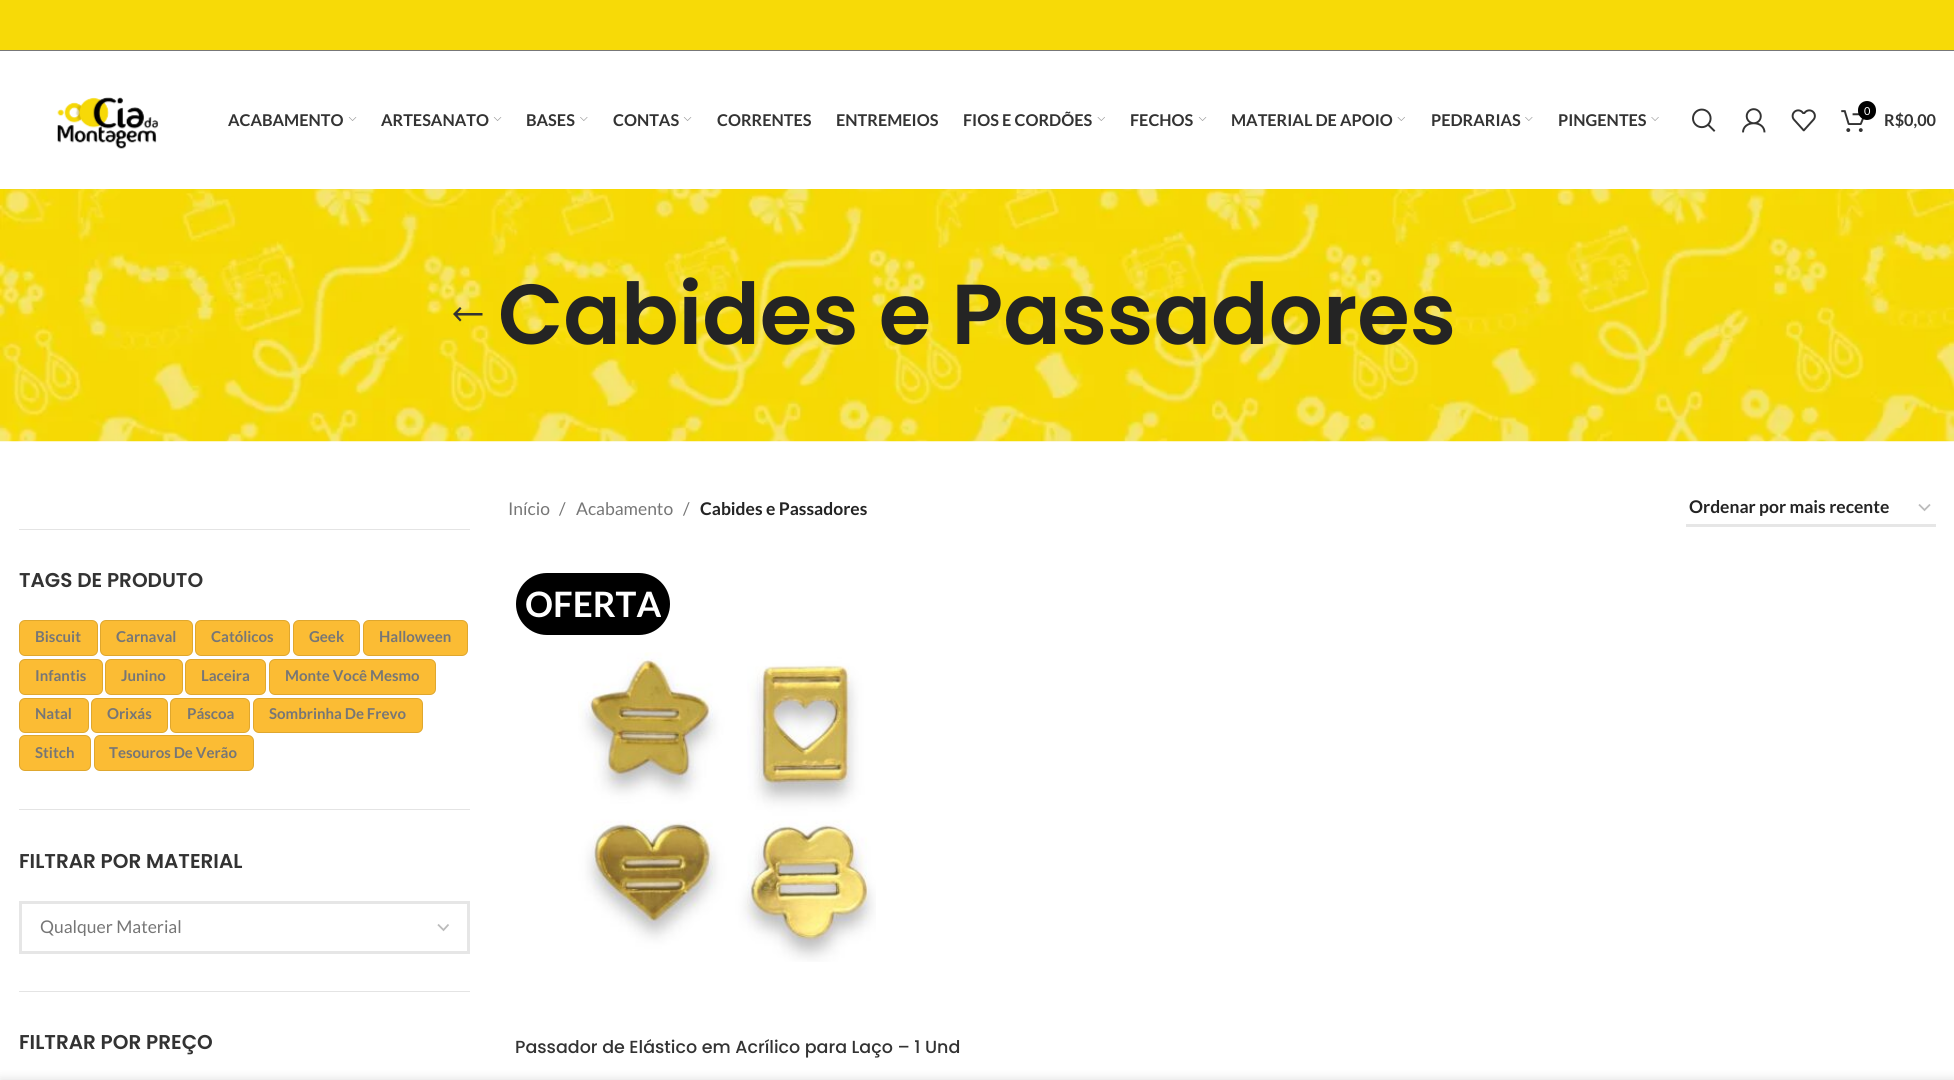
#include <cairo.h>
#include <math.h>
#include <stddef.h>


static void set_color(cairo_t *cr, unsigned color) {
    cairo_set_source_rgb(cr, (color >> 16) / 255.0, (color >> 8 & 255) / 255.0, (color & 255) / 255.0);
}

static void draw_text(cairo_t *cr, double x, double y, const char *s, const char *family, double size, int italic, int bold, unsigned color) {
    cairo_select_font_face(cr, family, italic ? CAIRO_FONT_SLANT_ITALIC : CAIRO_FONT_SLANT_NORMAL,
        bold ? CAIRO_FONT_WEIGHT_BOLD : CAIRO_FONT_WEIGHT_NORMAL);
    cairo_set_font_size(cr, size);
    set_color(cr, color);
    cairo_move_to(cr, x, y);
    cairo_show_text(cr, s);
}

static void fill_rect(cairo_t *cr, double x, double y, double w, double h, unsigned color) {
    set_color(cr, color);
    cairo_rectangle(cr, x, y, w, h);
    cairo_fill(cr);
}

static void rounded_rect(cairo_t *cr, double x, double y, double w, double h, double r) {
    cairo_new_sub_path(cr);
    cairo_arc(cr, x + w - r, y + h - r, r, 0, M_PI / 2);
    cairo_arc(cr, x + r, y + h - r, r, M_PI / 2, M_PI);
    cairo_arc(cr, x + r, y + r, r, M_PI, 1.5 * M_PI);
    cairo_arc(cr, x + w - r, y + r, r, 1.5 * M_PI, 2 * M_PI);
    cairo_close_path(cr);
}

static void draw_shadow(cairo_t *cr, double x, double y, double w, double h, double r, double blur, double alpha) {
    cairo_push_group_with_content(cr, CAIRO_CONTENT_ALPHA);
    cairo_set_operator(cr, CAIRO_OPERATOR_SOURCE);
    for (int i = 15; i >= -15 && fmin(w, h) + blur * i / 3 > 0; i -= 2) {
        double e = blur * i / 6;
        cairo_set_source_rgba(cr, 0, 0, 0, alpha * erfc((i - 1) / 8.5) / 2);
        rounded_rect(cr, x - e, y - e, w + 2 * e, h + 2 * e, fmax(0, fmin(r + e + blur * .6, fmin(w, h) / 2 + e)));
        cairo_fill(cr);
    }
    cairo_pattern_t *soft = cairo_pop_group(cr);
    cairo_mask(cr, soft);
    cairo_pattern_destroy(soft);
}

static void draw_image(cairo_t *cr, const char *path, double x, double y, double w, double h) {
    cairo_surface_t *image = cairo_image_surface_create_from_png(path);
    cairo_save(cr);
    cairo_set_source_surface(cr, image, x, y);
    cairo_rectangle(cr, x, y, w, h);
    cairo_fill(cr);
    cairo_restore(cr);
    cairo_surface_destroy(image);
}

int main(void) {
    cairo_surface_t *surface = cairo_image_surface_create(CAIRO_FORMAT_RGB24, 1954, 1080);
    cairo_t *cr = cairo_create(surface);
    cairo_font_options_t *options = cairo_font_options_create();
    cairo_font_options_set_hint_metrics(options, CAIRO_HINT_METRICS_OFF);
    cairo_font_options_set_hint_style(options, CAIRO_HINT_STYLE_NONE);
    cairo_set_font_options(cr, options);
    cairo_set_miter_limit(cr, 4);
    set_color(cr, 0xFFFFFF);
    cairo_paint(cr);
    fill_rect(cr, 0, 0, 1954, 50, 0xF7DA07);
    fill_rect(cr, 0, 50, 1954, 1, 0x777777);
    draw_image(cr, "assets/img1.png", 57, 97, 102, 52);
    draw_text(cr, 228, 126, "ACABAMENTO", "Lato", 16.25, 0, 1, 0x333333);
    draw_image(cr, "assets/img2.png", 348, 117, 9, 4);
    draw_text(cr, 381, 126, "ARTESANATO", "Lato", 16.25, 0, 1, 0x333333);
    draw_image(cr, "assets/img2.png", 493, 117, 9, 4);
    draw_text(cr, 526, 126, "BASES", "Lato", 16.25, 0, 1, 0x333333);
    draw_image(cr, "assets/img3.png", 580, 117, 8, 4);
    draw_text(cr, 613, 126, "CONTAS", "Lato", 16.25, 0, 1, 0x333333);
    draw_image(cr, "assets/img2.png", 683, 117, 9, 4);
    draw_text(cr, 717, 126, "CORRENTES", "Lato", 16.25, 0, 1, 0x333333);
    draw_text(cr, 836, 126, "ENTREMEIOS", "Lato", 16.25, 0, 1, 0x333333);
    draw_text(cr, 963, 126, "FIOS E CORDÕES", "Lato", 16.25, 0, 1, 0x333333);
    draw_image(cr, "assets/img4.png", 1097, 117, 8, 4);
    draw_text(cr, 1130, 126, "FECHOS", "Lato", 16.25, 0, 1, 0x333333);
    draw_image(cr, "assets/img2.png", 1198, 117, 9, 4);
    draw_text(cr, 1231, 126, "MATERIAL DE APOIO", "Lato", 16.25, 0, 1, 0x333333);
    draw_image(cr, "assets/img4.png", 1397, 117, 8, 4);
    draw_text(cr, 1431, 126, "PEDRARIAS", "Lato", 16.25, 0, 1, 0x333333);
    draw_image(cr, "assets/img3.png", 1525, 117, 8, 4);
    draw_text(cr, 1558, 126, "PINGENTES", "Lato", 16.25, 0, 1, 0x333333);
    draw_image(cr, "assets/img5.png", 1651, 117, 8, 4);
    draw_image(cr, "assets/img6.png", 1692, 108, 24, 24);
    draw_image(cr, "assets/img7.png", 1742, 108, 24, 25);
    draw_image(cr, "assets/img8.png", 1791, 109, 25, 23);
    draw_image(cr, "assets/img9.png", 1841, 110, 23, 22);
    set_color(cr, 0x000000);
    rounded_rect(cr, 1858, 101, 18, 19, 9);
    cairo_fill(cr);
    draw_text(cr, 1864, 115, "0", "Lato", 11, 0, 0, 0xFFFFFF);
    draw_text(cr, 1884, 126, "R$0,00", "Lato", 16.25, 0, 1, 0x333333);
    draw_image(cr, "assets/img10.png", 0, 189, 1954, 253);
    cairo_new_path(cr);
    cairo_move_to(cr, 461.5, 320);
    cairo_line_to(cr, 457.5, 315.5);
    cairo_line_to(cr, 482.5, 315.5);
    cairo_line_to(cr, 482.5, 313);
    cairo_line_to(cr, 457.5, 313);
    cairo_line_to(cr, 461.5, 308.5);
    cairo_line_to(cr, 460, 307);
    cairo_line_to(cr, 453, 314);
    cairo_line_to(cr, 460, 321.5);
    cairo_close_path(cr);
    cairo_fill(cr);
    draw_text(cr, 498, 344, "Cabides e Passadores", "Poppins SemiBold", 85, 0, 0, 0x242424);
    fill_rect(cr, 19, 529, 451, 1, 0xE4E4E4);
    fill_rect(cr, 19, 809, 451, 1, 0xE4E4E4);
    draw_text(cr, 19, 587, "TAGS DE PRODUTO", "Poppins SemiBold", 20, 0, 0, 0x333333);
    set_color(cr, 0xFBBC34);
    rounded_rect(cr, 19, 620, 79, 36, 6);
    cairo_fill(cr);
    rounded_rect(cr, 19.5, 620.5, 78, 35, 5.5);
    cairo_set_source_rgba(cr, 0, 0, 0, 0.11);
    cairo_set_line_width(cr, 1);
    cairo_stroke(cr);
    draw_text(cr, 35, 642, "Biscuit", "Lato", 15, 0, 1, 0x767676);
    set_color(cr, 0xFBBC34);
    rounded_rect(cr, 100, 620, 93, 36, 6);
    cairo_fill(cr);
    rounded_rect(cr, 100.5, 620.5, 92, 35, 5.5);
    cairo_set_source_rgba(cr, 0, 0, 0, 0.11);
    cairo_stroke(cr);
    draw_text(cr, 116, 642, "Carnaval", "Lato", 15, 0, 1, 0x767676);
    set_color(cr, 0xFBBC34);
    rounded_rect(cr, 195, 620, 95, 36, 6);
    cairo_fill(cr);
    rounded_rect(cr, 195.5, 620.5, 94, 35, 5.5);
    cairo_set_source_rgba(cr, 0, 0, 0, 0.11);
    cairo_stroke(cr);
    draw_text(cr, 211, 642, "Católicos", "Lato", 15, 0, 1, 0x767676);
    set_color(cr, 0xFBBC34);
    rounded_rect(cr, 293, 620, 67, 36, 6);
    cairo_fill(cr);
    rounded_rect(cr, 293.5, 620.5, 66, 35, 5.5);
    cairo_set_source_rgba(cr, 0, 0, 0, 0.11);
    cairo_stroke(cr);
    draw_text(cr, 309, 642, "Geek", "Lato", 15, 0, 1, 0x767676);
    set_color(cr, 0xFBBC34);
    rounded_rect(cr, 363, 620, 105, 36, 6);
    cairo_fill(cr);
    rounded_rect(cr, 363.5, 620.5, 104, 35, 5.5);
    cairo_set_source_rgba(cr, 0, 0, 0, 0.11);
    cairo_stroke(cr);
    draw_text(cr, 379, 642, "Halloween", "Lato", 15, 0, 1, 0x767676);
    set_color(cr, 0xFBBC34);
    rounded_rect(cr, 19, 659, 84, 36, 6);
    cairo_fill(cr);
    rounded_rect(cr, 19.5, 659.5, 83, 35, 5.5);
    cairo_set_source_rgba(cr, 0, 0, 0, 0.11);
    cairo_stroke(cr);
    draw_text(cr, 35, 681, "Infantis", "Lato", 15, 0, 1, 0x767676);
    set_color(cr, 0xFBBC34);
    rounded_rect(cr, 105, 659, 78, 36, 6);
    cairo_fill(cr);
    rounded_rect(cr, 105.5, 659.5, 77, 35, 5.5);
    cairo_set_source_rgba(cr, 0, 0, 0, 0.11);
    cairo_stroke(cr);
    draw_text(cr, 121, 681, "Junino", "Lato", 15, 0, 1, 0x767676);
    set_color(cr, 0xFBBC34);
    rounded_rect(cr, 185, 659, 81, 36, 6);
    cairo_fill(cr);
    rounded_rect(cr, 185.5, 659.5, 80, 35, 5.5);
    cairo_set_source_rgba(cr, 0, 0, 0, 0.11);
    cairo_stroke(cr);
    draw_text(cr, 201, 681, "Laceira", "Lato", 15, 0, 1, 0x767676);
    set_color(cr, 0xFBBC34);
    rounded_rect(cr, 269, 659, 167, 36, 6);
    cairo_fill(cr);
    rounded_rect(cr, 269.5, 659.5, 166, 35, 5.5);
    cairo_set_source_rgba(cr, 0, 0, 0, 0.11);
    cairo_stroke(cr);
    draw_text(cr, 285, 681, "Monte Você Mesmo", "Lato", 15, 0, 1, 0x767676);
    set_color(cr, 0xFBBC34);
    rounded_rect(cr, 19, 698, 70, 35, 6);
    cairo_fill(cr);
    rounded_rect(cr, 19.5, 698.5, 69, 34, 5.5);
    cairo_set_source_rgba(cr, 0, 0, 0, 0.11);
    cairo_stroke(cr);
    draw_text(cr, 35, 719, "Natal", "Lato", 15, 0, 1, 0x767676);
    set_color(cr, 0xFBBC34);
    rounded_rect(cr, 91, 698, 77, 35, 6);
    cairo_fill(cr);
    rounded_rect(cr, 91.5, 698.5, 76, 34, 5.5);
    cairo_set_source_rgba(cr, 0, 0, 0, 0.11);
    cairo_stroke(cr);
    draw_text(cr, 107, 719, "Orixás", "Lato", 15, 0, 1, 0x767676);
    set_color(cr, 0xFBBC34);
    rounded_rect(cr, 170, 698, 80, 35, 6);
    cairo_fill(cr);
    rounded_rect(cr, 170.5, 698.5, 79, 34, 5.5);
    cairo_set_source_rgba(cr, 0, 0, 0, 0.11);
    cairo_stroke(cr);
    draw_text(cr, 187, 719, "Páscoa", "Lato", 15, 0, 1, 0x767676);
    set_color(cr, 0xFBBC34);
    rounded_rect(cr, 253, 698, 170, 35, 6);
    cairo_fill(cr);
    rounded_rect(cr, 253.5, 698.5, 169, 34, 5.5);
    cairo_set_source_rgba(cr, 0, 0, 0, 0.11);
    cairo_stroke(cr);
    draw_text(cr, 269, 719, "Sombrinha De Frevo", "Lato", 15, 0, 1, 0x767676);
    set_color(cr, 0xFBBC34);
    rounded_rect(cr, 19, 735, 72, 36, 6);
    cairo_fill(cr);
    rounded_rect(cr, 19.5, 735.5, 71, 35, 5.5);
    cairo_set_source_rgba(cr, 0, 0, 0, 0.11);
    cairo_stroke(cr);
    draw_text(cr, 35, 758, "Stitch", "Lato", 15, 0, 1, 0x767676);
    set_color(cr, 0xFBBC34);
    rounded_rect(cr, 94, 735, 160, 36, 6);
    cairo_fill(cr);
    rounded_rect(cr, 94.5, 735.5, 159, 35, 5.5);
    cairo_set_source_rgba(cr, 0, 0, 0, 0.11);
    cairo_stroke(cr);
    draw_text(cr, 109, 758, "Tesouros De Verão", "Lato", 15, 0, 1, 0x767676);
    fill_rect(cr, 19, 991, 451, 1, 0xE4E4E4);
    draw_text(cr, 19, 868, "FILTRAR POR MATERIAL", "Poppins SemiBold", 20, 0, 0, 0x333333);
    cairo_new_path(cr);
    cairo_move_to(cr, 438, 924.5);
    cairo_line_to(cr, 443.5, 930);
    cairo_line_to(cr, 448.5, 924.5);
    set_color(cr, 0xBBBBBB);
    cairo_set_line_width(cr, 1.8);
    cairo_stroke(cr);
    cairo_rectangle(cr, 20.5, 902.5, 448, 50);
    set_color(cr, 0xE6E6E6);
    cairo_set_line_width(cr, 3);
    cairo_stroke(cr);
    draw_text(cr, 40, 933, "Qualquer Material", "Lato", 17.5, 0, 0, 0x767676);
    draw_text(cr, 19, 1049, "FILTRAR POR PREÇO", "Poppins SemiBold", 20, 0, 0, 0x333333);
    draw_text(cr, 508, 515, "Início", "Lato", 17.5, 0, 0, 0x767676);
    draw_text(cr, 559, 515, "/", "Lato", 17.5, 0, 0, 0x767676);
    draw_text(cr, 576, 515, "Acabamento", "Lato", 17.5, 0, 0, 0x767676);
    draw_text(cr, 683, 515, "/", "Lato", 17.5, 0, 0, 0x767676);
    draw_text(cr, 700, 515, "Cabides e Passadores", "Lato", 17.5, 0, 1, 0x242424);
    cairo_new_path(cr);
    cairo_move_to(cr, 1919, 504.5);
    cairo_line_to(cr, 1924.5, 510);
    cairo_line_to(cr, 1930, 504.5);
    set_color(cr, 0xBBBBBB);
    cairo_set_line_width(cr, 1.8);
    cairo_stroke(cr);
    fill_rect(cr, 1686, 524, 250, 3, 0xE6E6E6);
    draw_text(cr, 1689, 513, "Ordenar por mais recente", "Lato", 17.5, 0, 1, 0x242424);
    set_color(cr, 0x000000);
    rounded_rect(cr, 516, 573, 154, 62, 31);
    cairo_fill(cr);
    draw_text(cr, 525, 617, "OFERTA", "Lato", 35, 0, 1, 0xFFFFFF);
    draw_image(cr, "assets/img11.png", 578, 652, 298, 310);
    draw_text(cr, 515, 1053, "Passador de Elástico em Acrílico para Laço – 1 Und", "Poppins Medium", 17.5, 0, 0, 0x333333);
    set_color(cr, 0x000000);
    draw_shadow(cr, 0, 1080, 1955, 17, 0, 5.5, 0.14);
    cairo_surface_write_to_png(surface, "output.png");
    cairo_font_options_destroy(options);
    cairo_destroy(cr);
    cairo_surface_destroy(surface);
    return 0;
}
